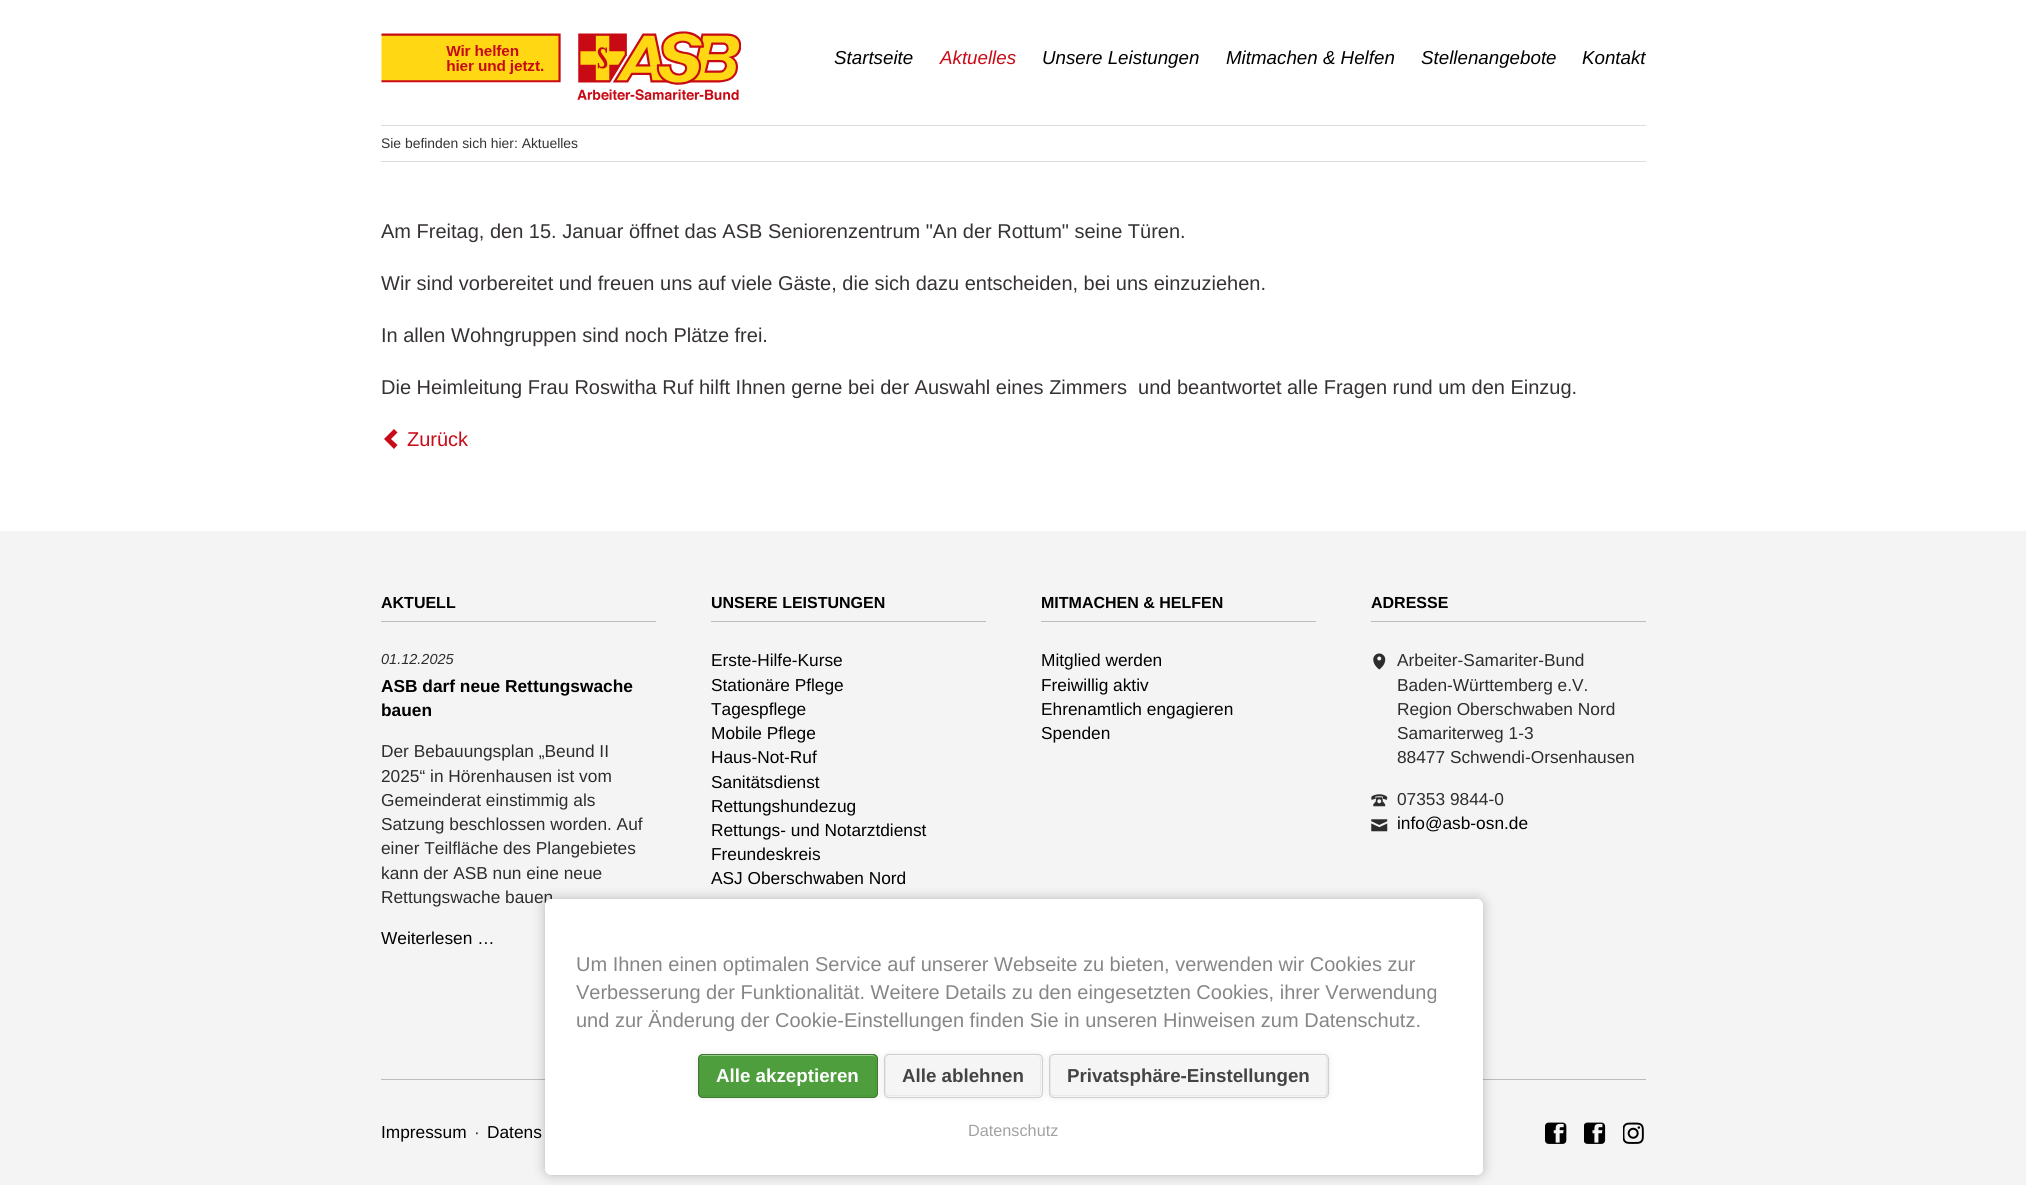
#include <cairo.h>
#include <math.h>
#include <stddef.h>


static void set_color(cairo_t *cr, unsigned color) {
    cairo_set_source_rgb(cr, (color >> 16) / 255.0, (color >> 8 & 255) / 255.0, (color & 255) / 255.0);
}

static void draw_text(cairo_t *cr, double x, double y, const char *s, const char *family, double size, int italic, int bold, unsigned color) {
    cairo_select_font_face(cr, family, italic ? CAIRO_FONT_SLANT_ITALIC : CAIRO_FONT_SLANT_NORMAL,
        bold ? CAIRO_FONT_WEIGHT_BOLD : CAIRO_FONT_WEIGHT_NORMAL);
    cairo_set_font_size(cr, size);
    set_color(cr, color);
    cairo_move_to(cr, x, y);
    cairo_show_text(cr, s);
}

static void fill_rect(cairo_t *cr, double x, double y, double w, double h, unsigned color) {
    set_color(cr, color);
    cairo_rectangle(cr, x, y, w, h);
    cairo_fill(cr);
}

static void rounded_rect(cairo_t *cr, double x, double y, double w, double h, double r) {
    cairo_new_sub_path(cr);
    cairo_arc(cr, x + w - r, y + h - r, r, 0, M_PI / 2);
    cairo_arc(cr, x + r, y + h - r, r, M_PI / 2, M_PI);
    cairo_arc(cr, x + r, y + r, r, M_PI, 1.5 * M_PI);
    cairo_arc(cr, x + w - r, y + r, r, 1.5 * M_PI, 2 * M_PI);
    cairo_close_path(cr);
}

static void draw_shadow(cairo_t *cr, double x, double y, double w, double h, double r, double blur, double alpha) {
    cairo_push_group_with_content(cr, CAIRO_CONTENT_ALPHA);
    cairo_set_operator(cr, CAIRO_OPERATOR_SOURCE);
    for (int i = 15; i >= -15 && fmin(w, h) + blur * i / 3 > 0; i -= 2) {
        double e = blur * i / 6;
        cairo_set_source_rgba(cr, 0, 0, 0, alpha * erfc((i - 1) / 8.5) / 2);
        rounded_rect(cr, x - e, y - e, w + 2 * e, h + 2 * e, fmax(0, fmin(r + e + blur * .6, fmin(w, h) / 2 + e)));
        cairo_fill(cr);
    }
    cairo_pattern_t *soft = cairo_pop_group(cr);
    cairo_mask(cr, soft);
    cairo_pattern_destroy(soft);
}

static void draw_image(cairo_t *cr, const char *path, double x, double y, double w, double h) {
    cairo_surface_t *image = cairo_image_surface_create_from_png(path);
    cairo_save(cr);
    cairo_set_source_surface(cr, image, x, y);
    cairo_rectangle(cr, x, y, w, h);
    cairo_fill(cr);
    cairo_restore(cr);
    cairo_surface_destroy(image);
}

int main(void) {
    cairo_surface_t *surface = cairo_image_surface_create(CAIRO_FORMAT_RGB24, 2026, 1193);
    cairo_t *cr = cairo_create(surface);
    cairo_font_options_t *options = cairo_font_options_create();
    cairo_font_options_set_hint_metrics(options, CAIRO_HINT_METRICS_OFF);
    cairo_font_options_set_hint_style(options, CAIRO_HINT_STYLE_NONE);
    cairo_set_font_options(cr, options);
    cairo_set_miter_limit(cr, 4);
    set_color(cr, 0xFFFFFF);
    cairo_paint(cr);
    fill_rect(cr, 381, 125, 1265, 1, 0xDCDCDC);
    draw_image(cr, "assets/img1.png", 381, 31, 360, 69);
    draw_text(cr, 834, 64, "Startseite", "Liberation Sans", 18.75, 1, 0, 0x000000);
    draw_text(cr, 940, 64, "Aktuelles", "Liberation Sans", 18.75, 1, 0, 0xCA0A16);
    draw_text(cr, 1042, 64, "Unsere Leistungen", "Liberation Sans", 18.75, 1, 0, 0x000000);
    draw_text(cr, 1226, 64, "Mitmachen & Helfen", "Liberation Sans", 18.75, 1, 0, 0x000000);
    draw_text(cr, 1421, 64, "Stellenangebote", "Liberation Sans", 18.75, 1, 0, 0x000000);
    draw_text(cr, 1582, 64, "Kontakt", "Liberation Sans", 18.75, 1, 0, 0x000000);
    fill_rect(cr, 381, 161, 1265, 1, 0xDCDCDC);
    draw_text(cr, 381, 148, "Sie befinden sich hier: Aktuelles", "Liberation Sans", 13.9, 0, 0, 0x363232);
    draw_text(cr, 381, 238, "Am Freitag, den 15. Januar öffnet das ASB Seniorenzentrum \"An der Rottum\" seine Türen.", "Liberation Sans", 20, 0, 0, 0x363232);
    draw_text(cr, 381, 290, "Wir sind vorbereitet und freuen uns auf viele Gäste, die sich dazu entscheiden, bei uns einzuziehen.", "Liberation Sans", 20, 0, 0, 0x363232);
    draw_text(cr, 381, 342, "In allen Wohngruppen sind noch Plätze frei.", "Liberation Sans", 20, 0, 0, 0x363232);
    draw_text(cr, 381, 394, "Die Heimleitung Frau Roswitha Ruf hilft Ihnen gerne bei der Auswahl eines Zimmers  und beantwortet alle Fragen rund um den Einzug.", "Liberation Sans", 20, 0, 0, 0x363232);
    set_color(cr, 0xCA0A16);
    cairo_new_path(cr);
    cairo_move_to(cr, 394, 449);
    cairo_line_to(cr, 397.5, 445);
    cairo_line_to(cr, 391, 439);
    cairo_line_to(cr, 397.5, 432.5);
    cairo_line_to(cr, 394, 429);
    cairo_line_to(cr, 384, 439);
    cairo_close_path(cr);
    cairo_fill(cr);
    draw_text(cr, 407, 446, "Zurück", "Liberation Sans", 20, 0, 0, 0xCA0A16);
    fill_rect(cr, 0, 531, 2026, 654, 0xF4F4F4);
    fill_rect(cr, 381, 621, 275, 1, 0xBCBCBC);
    draw_text(cr, 381, 608, "AKTUELL", "Liberation Sans", 16, 0, 1, 0x000000);
    draw_text(cr, 381, 664, "01.12.2025", "Liberation Sans", 14.5, 1, 0, 0x2D2D2D);
    draw_text(cr, 381, 692, "ASB darf neue Rettungswache", "Liberation Sans", 17.3, 0, 1, 0x000000);
    draw_text(cr, 381, 716, "bauen", "Liberation Sans", 17.3, 0, 1, 0x000000);
    draw_text(cr, 381, 757, "Der Bebauungsplan „Beund II", "Liberation Sans", 17.3, 0, 0, 0x2D2D2D);
    draw_text(cr, 381, 782, "2025“ in Hörenhausen ist vom", "Liberation Sans", 17.3, 0, 0, 0x2D2D2D);
    draw_text(cr, 381, 806, "Gemeinderat einstimmig als", "Liberation Sans", 17.3, 0, 0, 0x2D2D2D);
    draw_text(cr, 381, 830, "Satzung beschlossen worden. Auf", "Liberation Sans", 17.3, 0, 0, 0x2D2D2D);
    draw_text(cr, 381, 854, "einer Teilfläche des Plangebietes", "Liberation Sans", 17.3, 0, 0, 0x2D2D2D);
    draw_text(cr, 381, 879, "kann der ASB nun eine neue", "Liberation Sans", 17.3, 0, 0, 0x2D2D2D);
    draw_text(cr, 381, 903, "Rettungswache bauen", "Liberation Sans", 17.3, 0, 0, 0x2D2D2D);
    draw_text(cr, 381, 944, "Weiterlesen …", "Liberation Sans", 17.3, 0, 0, 0x000000);
    fill_rect(cr, 711, 621, 275, 1, 0xBCBCBC);
    draw_text(cr, 711, 608, "UNSERE LEISTUNGEN", "Liberation Sans", 16, 0, 1, 0x000000);
    draw_text(cr, 711, 666, "Erste-Hilfe-Kurse", "Liberation Sans", 17.3, 0, 0, 0x000000);
    draw_text(cr, 711, 691, "Stationäre Pflege", "Liberation Sans", 17.3, 0, 0, 0x000000);
    draw_text(cr, 711, 715, "Tagespflege", "Liberation Sans", 17.3, 0, 0, 0x000000);
    draw_text(cr, 711, 739, "Mobile Pflege", "Liberation Sans", 17.3, 0, 0, 0x000000);
    draw_text(cr, 711, 763, "Haus-Not-Ruf", "Liberation Sans", 17.3, 0, 0, 0x000000);
    draw_text(cr, 711, 788, "Sanitätsdienst", "Liberation Sans", 17.3, 0, 0, 0x000000);
    draw_text(cr, 711, 812, "Rettungshundezug", "Liberation Sans", 17.3, 0, 0, 0x000000);
    draw_text(cr, 711, 836, "Rettungs- und Notarztdienst", "Liberation Sans", 17.3, 0, 0, 0x000000);
    draw_text(cr, 711, 860, "Freundeskreis", "Liberation Sans", 17.3, 0, 0, 0x000000);
    draw_text(cr, 711, 884, "ASJ Oberschwaben Nord", "Liberation Sans", 17.3, 0, 0, 0x000000);
    fill_rect(cr, 1041, 621, 275, 1, 0xBCBCBC);
    draw_text(cr, 1041, 608, "MITMACHEN & HELFEN", "Liberation Sans", 16, 0, 1, 0x000000);
    draw_text(cr, 1041, 666, "Mitglied werden", "Liberation Sans", 17.3, 0, 0, 0x000000);
    draw_text(cr, 1041, 691, "Freiwillig aktiv", "Liberation Sans", 17.3, 0, 0, 0x000000);
    draw_text(cr, 1041, 715, "Ehrenamtlich engagieren", "Liberation Sans", 17.3, 0, 0, 0x000000);
    draw_text(cr, 1041, 739, "Spenden", "Liberation Sans", 17.3, 0, 0, 0x000000);
    fill_rect(cr, 1371, 621, 275, 1, 0xBCBCBC);
    draw_text(cr, 1371, 608, "ADRESSE", "Liberation Sans", 16, 0, 1, 0x000000);
    draw_image(cr, "assets/img2.png", 1373, 653, 13, 17);
    draw_text(cr, 1397, 666, "Arbeiter-Samariter-Bund", "Liberation Sans", 17.3, 0, 0, 0x2D2D2D);
    draw_text(cr, 1397, 691, "Baden-Württemberg e.V.", "Liberation Sans", 17.3, 0, 0, 0x2D2D2D);
    draw_text(cr, 1397, 715, "Region Oberschwaben Nord", "Liberation Sans", 17.3, 0, 0, 0x2D2D2D);
    draw_text(cr, 1397, 739, "Samariterweg 1-3", "Liberation Sans", 17.3, 0, 0, 0x2D2D2D);
    draw_text(cr, 1397, 763, "88477 Schwendi-Orsenhausen", "Liberation Sans", 17.3, 0, 0, 0x2D2D2D);
    draw_image(cr, "assets/img3.png", 1371, 794, 17, 13);
    draw_text(cr, 1397, 805, "07353 9844-0", "Liberation Sans", 17.3, 0, 0, 0x2D2D2D);
    draw_image(cr, "assets/img4.png", 1371, 819, 17, 13);
    draw_text(cr, 1397, 829, "info@asb-osn.de", "Liberation Sans", 17.3, 0, 0, 0x000000);
    fill_rect(cr, 381, 1079, 1265, 1, 0xBCBCBC);
    draw_text(cr, 381, 1138, "Impressum", "Liberation Sans", 17.3, 0, 0, 0x000000);
    draw_text(cr, 474, 1138, "·", "Liberation Sans", 17.3, 0, 0, 0x2D2D2D);
    draw_text(cr, 487, 1138, "Datens", "Liberation Sans", 17.3, 0, 0, 0x000000);
    draw_image(cr, "assets/img5.png", 1545, 1122, 22, 22);
    draw_image(cr, "assets/img6.png", 1584, 1122, 22, 22);
    draw_image(cr, "assets/img7.png", 1623, 1122, 21, 22);
    set_color(cr, 0x000000);
    draw_shadow(cr, 545, 899, 938, 276, 6, 6, 0.25);
    set_color(cr, 0xFFFFFF);
    rounded_rect(cr, 545, 899, 938, 276, 6);
    cairo_fill(cr);
    draw_text(cr, 576, 971, "Um Ihnen einen optimalen Service auf unserer Webseite zu bieten, verwenden wir Cookies zur", "Liberation Sans", 20, 0, 0, 0x868686);
    draw_text(cr, 576, 999, "Verbesserung der Funktionalität. Weitere Details zu den eingesetzten Cookies, ihrer Verwendung", "Liberation Sans", 20, 0, 0, 0x868686);
    draw_text(cr, 576, 1027, "und zur Änderung der Cookie-Einstellungen finden Sie in unseren Hinweisen zum Datenschutz.", "Liberation Sans", 20, 0, 0, 0x868686);
    set_color(cr, 0x1A1A1A);
    draw_shadow(cr, 698, 1054, 180, 44, 5, 3, 0.1);
    set_color(cr, 0x4E9E3E);
    rounded_rect(cr, 698, 1054, 180, 44, 5);
    cairo_fill(cr);
    set_color(cr, 0x4A963B);
    cairo_new_path(cr);
    cairo_move_to(cr, 871, 1096);
    cairo_curve_to(cr, 877, 1096, 876, 1091, 876, 1086);
    cairo_line_to(cr, 876, 1064);
    cairo_curve_to(cr, 876, 1060, 877, 1055, 871, 1055);
    cairo_curve_to(cr, 873, 1055, 875, 1057, 875, 1059);
    cairo_line_to(cr, 875, 1092);
    cairo_curve_to(cr, 875, 1095, 873, 1096, 871, 1096);
    cairo_close_path(cr);
    cairo_fill(cr);
    cairo_new_path(cr);
    cairo_move_to(cr, 703, 1055);
    cairo_curve_to(cr, 701, 1055, 699, 1057, 699, 1059);
    cairo_line_to(cr, 699, 1092);
    cairo_curve_to(cr, 699, 1094, 701, 1096, 703, 1096);
    cairo_line_to(cr, 704, 1096);
    cairo_curve_to(cr, 702, 1096, 700, 1095, 700, 1092);
    cairo_line_to(cr, 700, 1059);
    cairo_curve_to(cr, 700, 1057, 702, 1055, 704, 1055);
    cairo_close_path(cr);
    cairo_fill(cr);
    cairo_set_source_rgba(cr, 0, 0, 0, 0.05);
    cairo_new_path(cr);
    cairo_move_to(cr, 699, 1091);
    cairo_line_to(cr, 699, 1092);
    cairo_curve_to(cr, 699, 1094, 701, 1096, 703, 1096);
    cairo_line_to(cr, 872, 1096);
    cairo_curve_to(cr, 874, 1096, 876, 1094, 876, 1092);
    cairo_line_to(cr, 876, 1091);
    cairo_curve_to(cr, 876, 1093, 875, 1095, 872, 1095);
    cairo_line_to(cr, 702, 1095);
    cairo_curve_to(cr, 700, 1095, 699, 1093, 699, 1091);
    cairo_close_path(cr);
    cairo_fill(cr);
    cairo_set_source_rgba(cr, 1, 1, 1, 0.4);
    cairo_new_path(cr);
    cairo_move_to(cr, 702, 1056);
    cairo_line_to(cr, 872, 1056);
    cairo_curve_to(cr, 875, 1056, 876, 1058, 876, 1060);
    cairo_line_to(cr, 876, 1059);
    cairo_curve_to(cr, 876, 1057, 874, 1055, 872, 1055);
    cairo_line_to(cr, 703, 1055);
    cairo_curve_to(cr, 701, 1055, 699, 1057, 699, 1059);
    cairo_line_to(cr, 699, 1060);
    cairo_curve_to(cr, 699, 1058, 700, 1056, 702, 1056);
    cairo_close_path(cr);
    cairo_fill(cr);
    rounded_rect(cr, 698.5, 1054.5, 179, 43, 4.5);
    set_color(cr, 0x3E7830);
    cairo_set_line_width(cr, 1);
    cairo_stroke(cr);
    draw_text(cr, 716, 1082, "Alle akzeptieren", "Liberation Sans", 18.75, 0, 1, 0xFFFFFF);
    set_color(cr, 0x1A1A1A);
    draw_shadow(cr, 884, 1054, 159, 44, 5, 3, 0.1);
    set_color(cr, 0xF5F5F5);
    rounded_rect(cr, 884, 1054, 159, 44, 5);
    cairo_fill(cr);
    set_color(cr, 0xE9E9E9);
    cairo_new_path(cr);
    cairo_move_to(cr, 1036, 1096);
    cairo_curve_to(cr, 1042, 1096, 1041, 1091, 1041, 1086);
    cairo_line_to(cr, 1041, 1064);
    cairo_curve_to(cr, 1041, 1060, 1042, 1055, 1036, 1055);
    cairo_curve_to(cr, 1038, 1055, 1040, 1057, 1040, 1059);
    cairo_line_to(cr, 1040, 1092);
    cairo_curve_to(cr, 1040, 1095, 1038, 1096, 1036, 1096);
    cairo_close_path(cr);
    cairo_fill(cr);
    cairo_new_path(cr);
    cairo_move_to(cr, 889, 1055);
    cairo_curve_to(cr, 887, 1055, 885, 1057, 885, 1059);
    cairo_line_to(cr, 885, 1092);
    cairo_curve_to(cr, 885, 1094, 887, 1096, 889, 1096);
    cairo_line_to(cr, 890, 1096);
    cairo_curve_to(cr, 888, 1096, 886, 1095, 886, 1092);
    cairo_line_to(cr, 886, 1059);
    cairo_curve_to(cr, 886, 1057, 888, 1055, 890, 1055);
    cairo_close_path(cr);
    cairo_fill(cr);
    cairo_set_source_rgba(cr, 0, 0, 0, 0.05);
    cairo_new_path(cr);
    cairo_move_to(cr, 885, 1091);
    cairo_curve_to(cr, 885, 1093, 886, 1095, 888, 1096);
    cairo_line_to(cr, 1038, 1096);
    cairo_curve_to(cr, 1040, 1095, 1041, 1093, 1041, 1091);
    cairo_curve_to(cr, 1041, 1093, 1040, 1095, 1038, 1095);
    cairo_line_to(cr, 889, 1095);
    cairo_curve_to(cr, 887, 1095, 885, 1093, 885, 1091);
    cairo_close_path(cr);
    cairo_fill(cr);
    cairo_set_source_rgba(cr, 1, 1, 1, 0.4);
    cairo_new_path(cr);
    cairo_move_to(cr, 889, 1056);
    cairo_line_to(cr, 1038, 1056);
    cairo_curve_to(cr, 1040, 1056, 1041, 1058, 1041, 1060);
    cairo_curve_to(cr, 1041, 1058, 1040, 1056, 1038, 1055);
    cairo_line_to(cr, 888, 1055);
    cairo_curve_to(cr, 886, 1056, 885, 1058, 885, 1060);
    cairo_curve_to(cr, 885, 1058, 887, 1056, 889, 1056);
    cairo_close_path(cr);
    cairo_fill(cr);
    rounded_rect(cr, 884.5, 1054.5, 158, 43, 4.5);
    set_color(cr, 0xCFCFCF);
    cairo_stroke(cr);
    draw_text(cr, 902, 1082, "Alle ablehnen", "Liberation Sans", 18.75, 0, 1, 0x444444);
    set_color(cr, 0x1A1A1A);
    draw_shadow(cr, 1049, 1054, 280, 44, 5, 3, 0.1);
    set_color(cr, 0xF5F5F5);
    rounded_rect(cr, 1049, 1054, 280, 44, 5);
    cairo_fill(cr);
    set_color(cr, 0xE9E9E9);
    cairo_new_path(cr);
    cairo_move_to(cr, 1322, 1096);
    cairo_curve_to(cr, 1329, 1096, 1328, 1093, 1328, 1086);
    cairo_line_to(cr, 1328, 1064);
    cairo_curve_to(cr, 1328, 1058, 1329, 1055, 1322, 1055);
    cairo_curve_to(cr, 1325, 1055, 1326, 1057, 1326, 1059);
    cairo_line_to(cr, 1326, 1092);
    cairo_curve_to(cr, 1326, 1095, 1325, 1096, 1322, 1096);
    cairo_close_path(cr);
    cairo_fill(cr);
    cairo_new_path(cr);
    cairo_move_to(cr, 1054, 1055);
    cairo_curve_to(cr, 1052, 1055, 1050, 1057, 1050, 1059);
    cairo_line_to(cr, 1050, 1092);
    cairo_curve_to(cr, 1050, 1094, 1052, 1096, 1054, 1096);
    cairo_line_to(cr, 1055, 1096);
    cairo_curve_to(cr, 1053, 1096, 1051, 1095, 1051, 1092);
    cairo_line_to(cr, 1051, 1059);
    cairo_curve_to(cr, 1051, 1057, 1053, 1055, 1055, 1055);
    cairo_close_path(cr);
    cairo_fill(cr);
    cairo_set_source_rgba(cr, 0, 0, 0, 0.05);
    cairo_new_path(cr);
    cairo_move_to(cr, 1050, 1091);
    cairo_curve_to(cr, 1050, 1094, 1051, 1096, 1054, 1096);
    cairo_line_to(cr, 1324, 1096);
    cairo_curve_to(cr, 1327, 1096, 1328, 1094, 1328, 1091);
    cairo_curve_to(cr, 1328, 1093, 1326, 1095, 1324, 1095);
    cairo_line_to(cr, 1054, 1095);
    cairo_curve_to(cr, 1052, 1095, 1050, 1093, 1050, 1091);
    cairo_close_path(cr);
    cairo_fill(cr);
    cairo_set_source_rgba(cr, 1, 1, 1, 0.4);
    cairo_new_path(cr);
    cairo_move_to(cr, 1054, 1056);
    cairo_line_to(cr, 1324, 1056);
    cairo_curve_to(cr, 1326, 1056, 1328, 1058, 1328, 1060);
    cairo_curve_to(cr, 1328, 1057, 1327, 1055, 1324, 1055);
    cairo_line_to(cr, 1054, 1055);
    cairo_curve_to(cr, 1051, 1055, 1050, 1057, 1050, 1060);
    cairo_curve_to(cr, 1050, 1058, 1052, 1056, 1054, 1056);
    cairo_close_path(cr);
    cairo_fill(cr);
    rounded_rect(cr, 1049.5, 1054.5, 279, 43, 4.5);
    set_color(cr, 0xCFCFCF);
    cairo_stroke(cr);
    draw_text(cr, 1067, 1082, "Privatsphäre-Einstellungen", "Liberation Sans", 18.75, 0, 1, 0x444444);
    draw_text(cr, 968, 1136, "Datenschutz", "Liberation Sans", 16.25, 0, 0, 0xA2A2A2);
    cairo_surface_write_to_png(surface, "output.png");
    cairo_font_options_destroy(options);
    cairo_destroy(cr);
    cairo_surface_destroy(surface);
    return 0;
}
